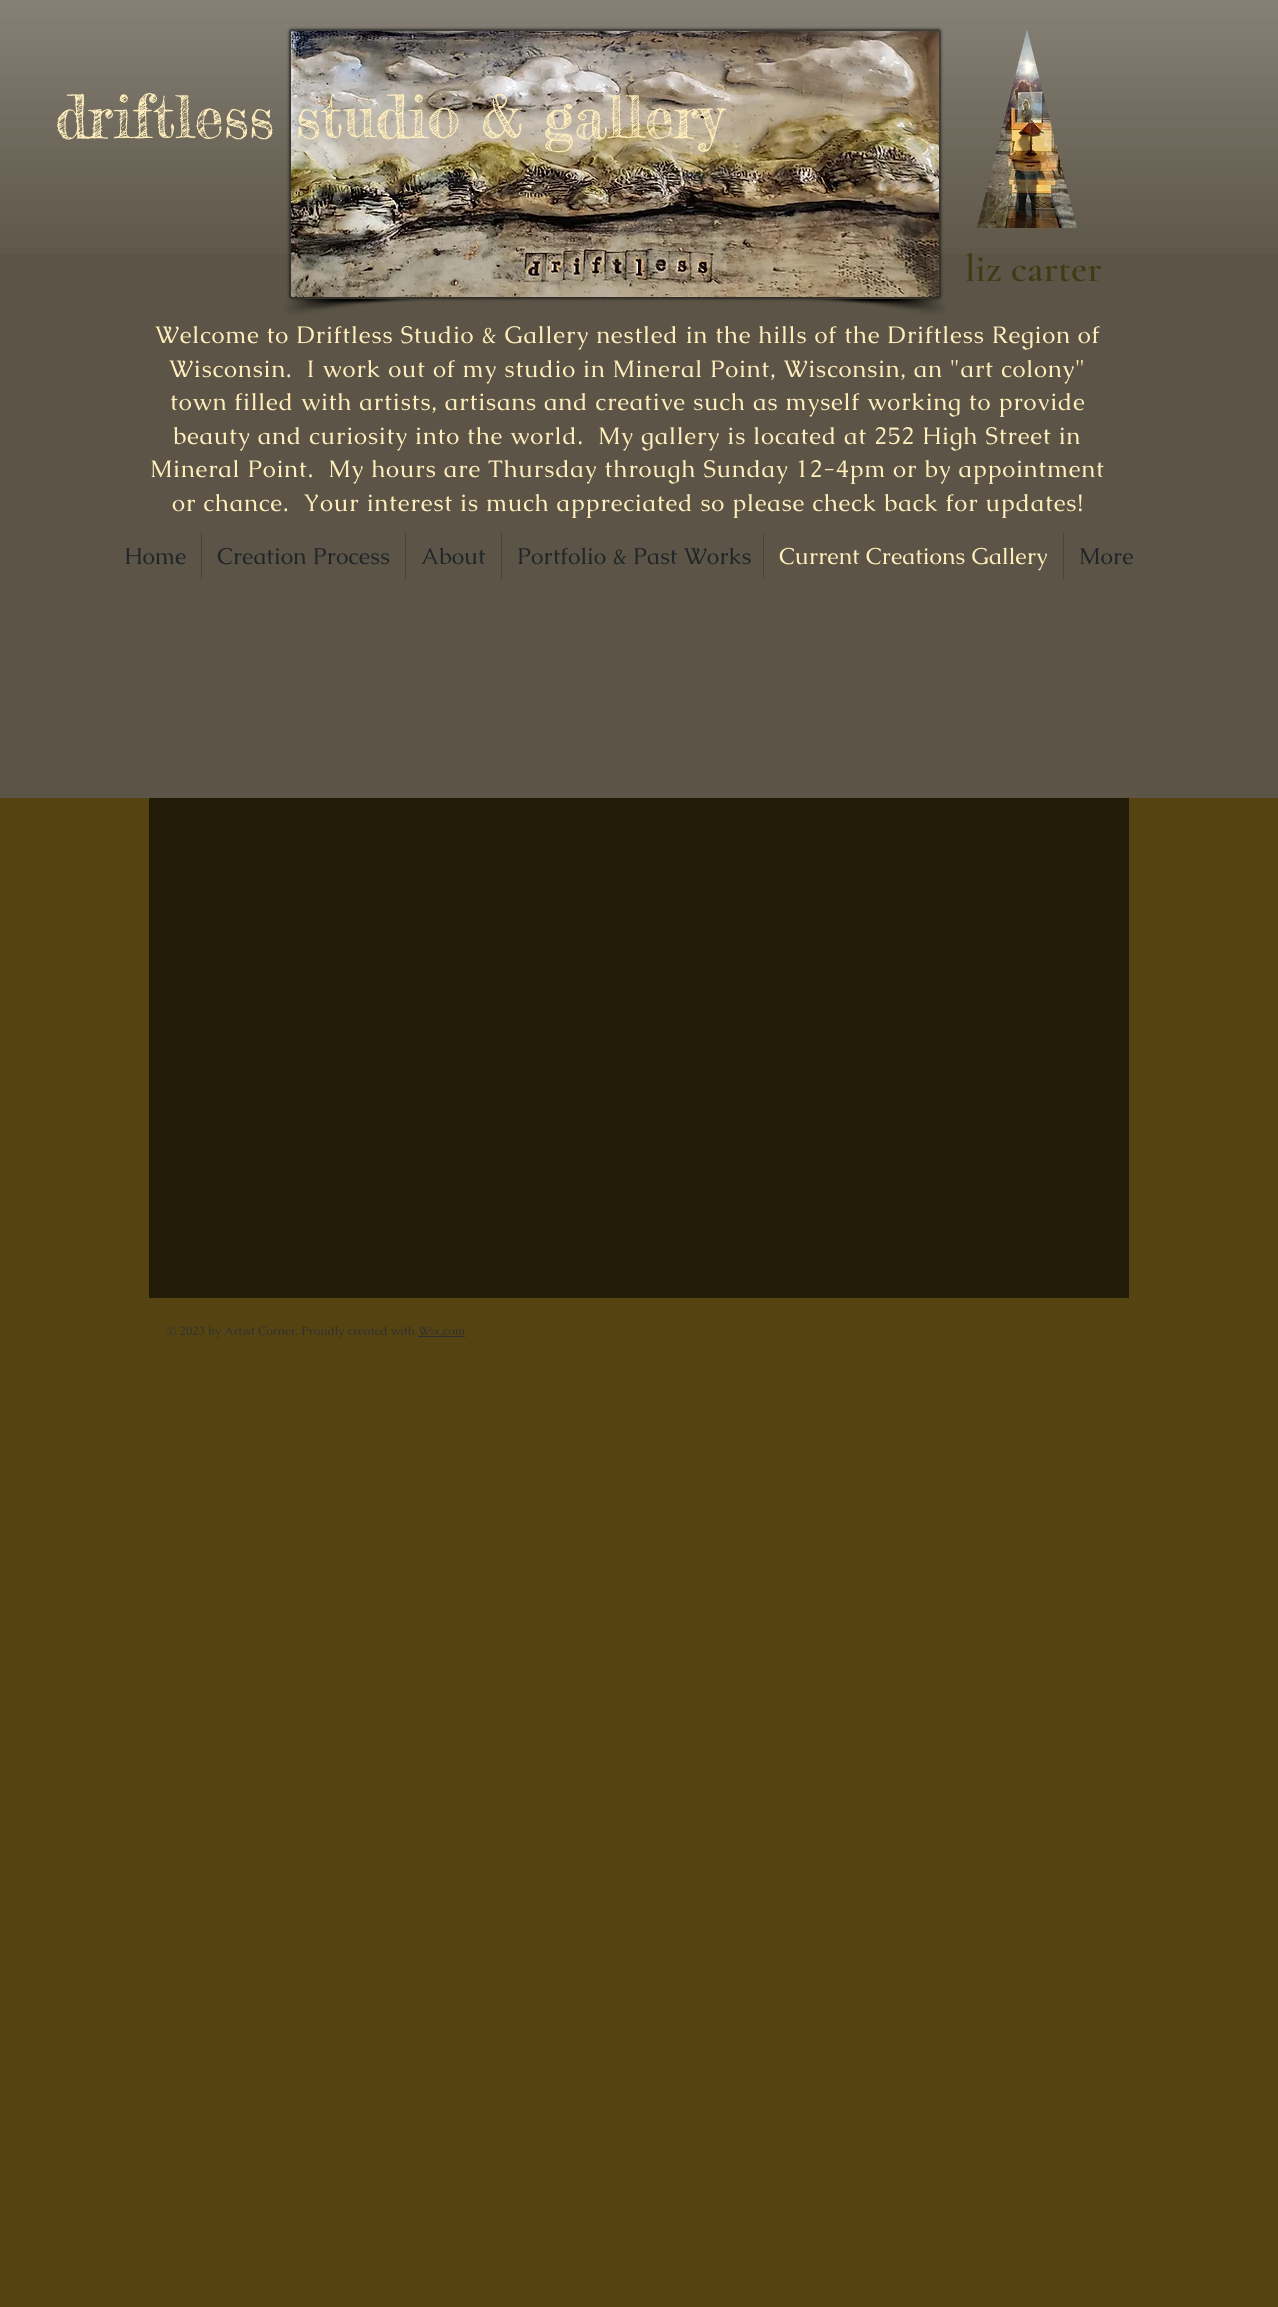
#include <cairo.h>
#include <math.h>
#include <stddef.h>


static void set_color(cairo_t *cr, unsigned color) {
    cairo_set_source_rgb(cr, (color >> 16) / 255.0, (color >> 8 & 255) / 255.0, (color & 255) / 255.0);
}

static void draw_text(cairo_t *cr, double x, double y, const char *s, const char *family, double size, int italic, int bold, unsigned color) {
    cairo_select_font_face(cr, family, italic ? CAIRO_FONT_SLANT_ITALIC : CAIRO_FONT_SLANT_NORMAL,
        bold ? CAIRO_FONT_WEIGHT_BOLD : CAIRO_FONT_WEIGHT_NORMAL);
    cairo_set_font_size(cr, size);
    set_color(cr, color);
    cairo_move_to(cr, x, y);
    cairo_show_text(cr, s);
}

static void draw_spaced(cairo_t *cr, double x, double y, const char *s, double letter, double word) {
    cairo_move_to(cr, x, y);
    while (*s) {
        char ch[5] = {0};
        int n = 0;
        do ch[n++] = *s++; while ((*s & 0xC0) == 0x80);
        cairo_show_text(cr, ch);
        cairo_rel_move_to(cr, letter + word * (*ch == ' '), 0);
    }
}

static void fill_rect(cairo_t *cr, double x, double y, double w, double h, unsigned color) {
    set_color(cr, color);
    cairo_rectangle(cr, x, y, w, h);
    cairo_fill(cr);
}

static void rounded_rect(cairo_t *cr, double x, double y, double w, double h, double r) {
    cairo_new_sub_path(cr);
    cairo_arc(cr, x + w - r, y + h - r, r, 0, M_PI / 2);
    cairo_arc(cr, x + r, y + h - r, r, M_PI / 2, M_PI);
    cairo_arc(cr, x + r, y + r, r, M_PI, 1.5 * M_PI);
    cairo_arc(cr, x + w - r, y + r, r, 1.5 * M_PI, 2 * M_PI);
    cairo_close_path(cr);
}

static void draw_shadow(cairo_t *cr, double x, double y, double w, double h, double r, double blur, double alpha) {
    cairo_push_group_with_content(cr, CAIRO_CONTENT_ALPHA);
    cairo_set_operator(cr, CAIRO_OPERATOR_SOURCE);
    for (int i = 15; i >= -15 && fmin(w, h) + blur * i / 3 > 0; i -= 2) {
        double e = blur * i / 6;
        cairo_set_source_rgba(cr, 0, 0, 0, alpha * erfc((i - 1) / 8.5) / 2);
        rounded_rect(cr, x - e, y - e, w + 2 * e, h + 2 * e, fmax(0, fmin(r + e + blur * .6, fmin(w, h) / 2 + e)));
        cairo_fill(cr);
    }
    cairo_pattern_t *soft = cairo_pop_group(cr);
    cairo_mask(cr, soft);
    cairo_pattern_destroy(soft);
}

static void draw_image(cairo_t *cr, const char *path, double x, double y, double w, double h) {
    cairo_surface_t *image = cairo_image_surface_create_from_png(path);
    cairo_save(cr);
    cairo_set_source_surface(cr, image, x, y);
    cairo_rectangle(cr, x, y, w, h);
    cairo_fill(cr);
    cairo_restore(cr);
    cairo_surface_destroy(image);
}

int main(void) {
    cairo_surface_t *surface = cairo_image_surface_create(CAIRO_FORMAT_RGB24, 1278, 2307);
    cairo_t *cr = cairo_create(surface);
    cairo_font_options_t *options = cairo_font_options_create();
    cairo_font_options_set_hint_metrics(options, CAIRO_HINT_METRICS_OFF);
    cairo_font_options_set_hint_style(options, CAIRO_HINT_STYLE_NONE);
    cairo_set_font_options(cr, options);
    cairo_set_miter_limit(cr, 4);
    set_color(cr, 0x554412);
    cairo_paint(cr);
    fill_rect(cr, 0, 0, 1278, 798, 0x5C5547);
    draw_image(cr, "assets/img1.png", 0, 0, 1278, 254);
    set_color(cr, 0x000000);
    draw_shadow(cr, 289, 29, 652, 270, 3, 1.5, 0.5);
    cairo_set_source_rgba(cr, 0.184, 0.184, 0.188, 0.22);
    rounded_rect(cr, 289, 29, 652, 270, 3);
    cairo_fill(cr);
    rounded_rect(cr, 290, 30, 650, 268, 2);
    cairo_stroke(cr);
    draw_image(cr, "assets/img2.png", 291, 31, 648, 266);
    draw_image(cr, "assets/img3.png", 284, 299, 136, 16);
    draw_image(cr, "assets/img4.png", 810, 299, 136, 16);
    draw_image(cr, "assets/img5.png", 977, 29, 100, 199);
    draw_text(cr, 55, 138, "driftless studio & gallery", "Fredericka the Great", 59, 0, 0, 0xFFEEBC);
    draw_text(cr, 965, 281, "liz carter", "Cormorant Garamond SemiBold", 39, 0, 0, 0x3E3C17);
    cairo_select_font_face(cr, "Caudex", CAIRO_FONT_SLANT_NORMAL, CAIRO_FONT_WEIGHT_NORMAL);
    cairo_set_font_size(cr, 24);
    set_color(cr, 0xFFEEBC);
    draw_spaced(cr, 155, 343, "Welcome to Driftless Studio & Gallery nestled in the hills of the Driftless Region of", 0.72, 0);
    draw_spaced(cr, 169, 377, "Wisconsin.  I work out of my studio in Mineral Point, Wisconsin, an \"art colony\"", 0.72, 0);
    draw_spaced(cr, 170, 410, "town filled with artists, artisans and creative such as myself working to provide", 0.72, 0);
    draw_spaced(cr, 173, 444, "beauty and curiosity into the world.  My gallery is located at 252 High Street in", 0.72, 0);
    draw_spaced(cr, 150, 477, "Mineral Point.  My hours are Thursday through Sunday 12-4pm or by appointment", 0.72, 0);
    draw_spaced(cr, 172, 511, "or chance.  Your interest is much appreciated so please check back for updates!", 0.72, 0);
    draw_text(cr, 124, 564, "Home", "Caudex", 23, 0, 0, 0x1F2528);
    fill_rect(cr, 201, 533, 1, 46, 0x47433C);
    draw_text(cr, 217, 564, "Creation Process", "Caudex", 23, 0, 0, 0x1F2528);
    fill_rect(cr, 405, 533, 1, 46, 0x47433C);
    draw_text(cr, 421, 564, "About", "Caudex", 23, 0, 0, 0x1F2528);
    fill_rect(cr, 501, 533, 1, 46, 0x47433C);
    draw_text(cr, 517, 564, "Portfolio & Past Works", "Caudex", 23, 0, 0, 0x1F2528);
    fill_rect(cr, 763, 533, 1, 46, 0x47433C);
    draw_text(cr, 779, 564, "Current Creations Gallery", "Caudex", 23, 0, 0, 0xFFEEBC);
    fill_rect(cr, 1063, 533, 1, 46, 0x47433C);
    draw_text(cr, 1079, 564, "More", "Caudex", 23, 0, 0, 0x1F2528);
    fill_rect(cr, 149, 798, 980, 500, 0x221B07);
    draw_text(cr, 167, 1335, "© 2023 by Artist Corner. Proudly created with Wix.com", "Caudex", 12, 0, 0, 0x2F2F30);
    fill_rect(cr, 418, 1336, 47, 1, 0x2F2F30);
    cairo_surface_write_to_png(surface, "output.png");
    cairo_font_options_destroy(options);
    cairo_destroy(cr);
    cairo_surface_destroy(surface);
    return 0;
}
